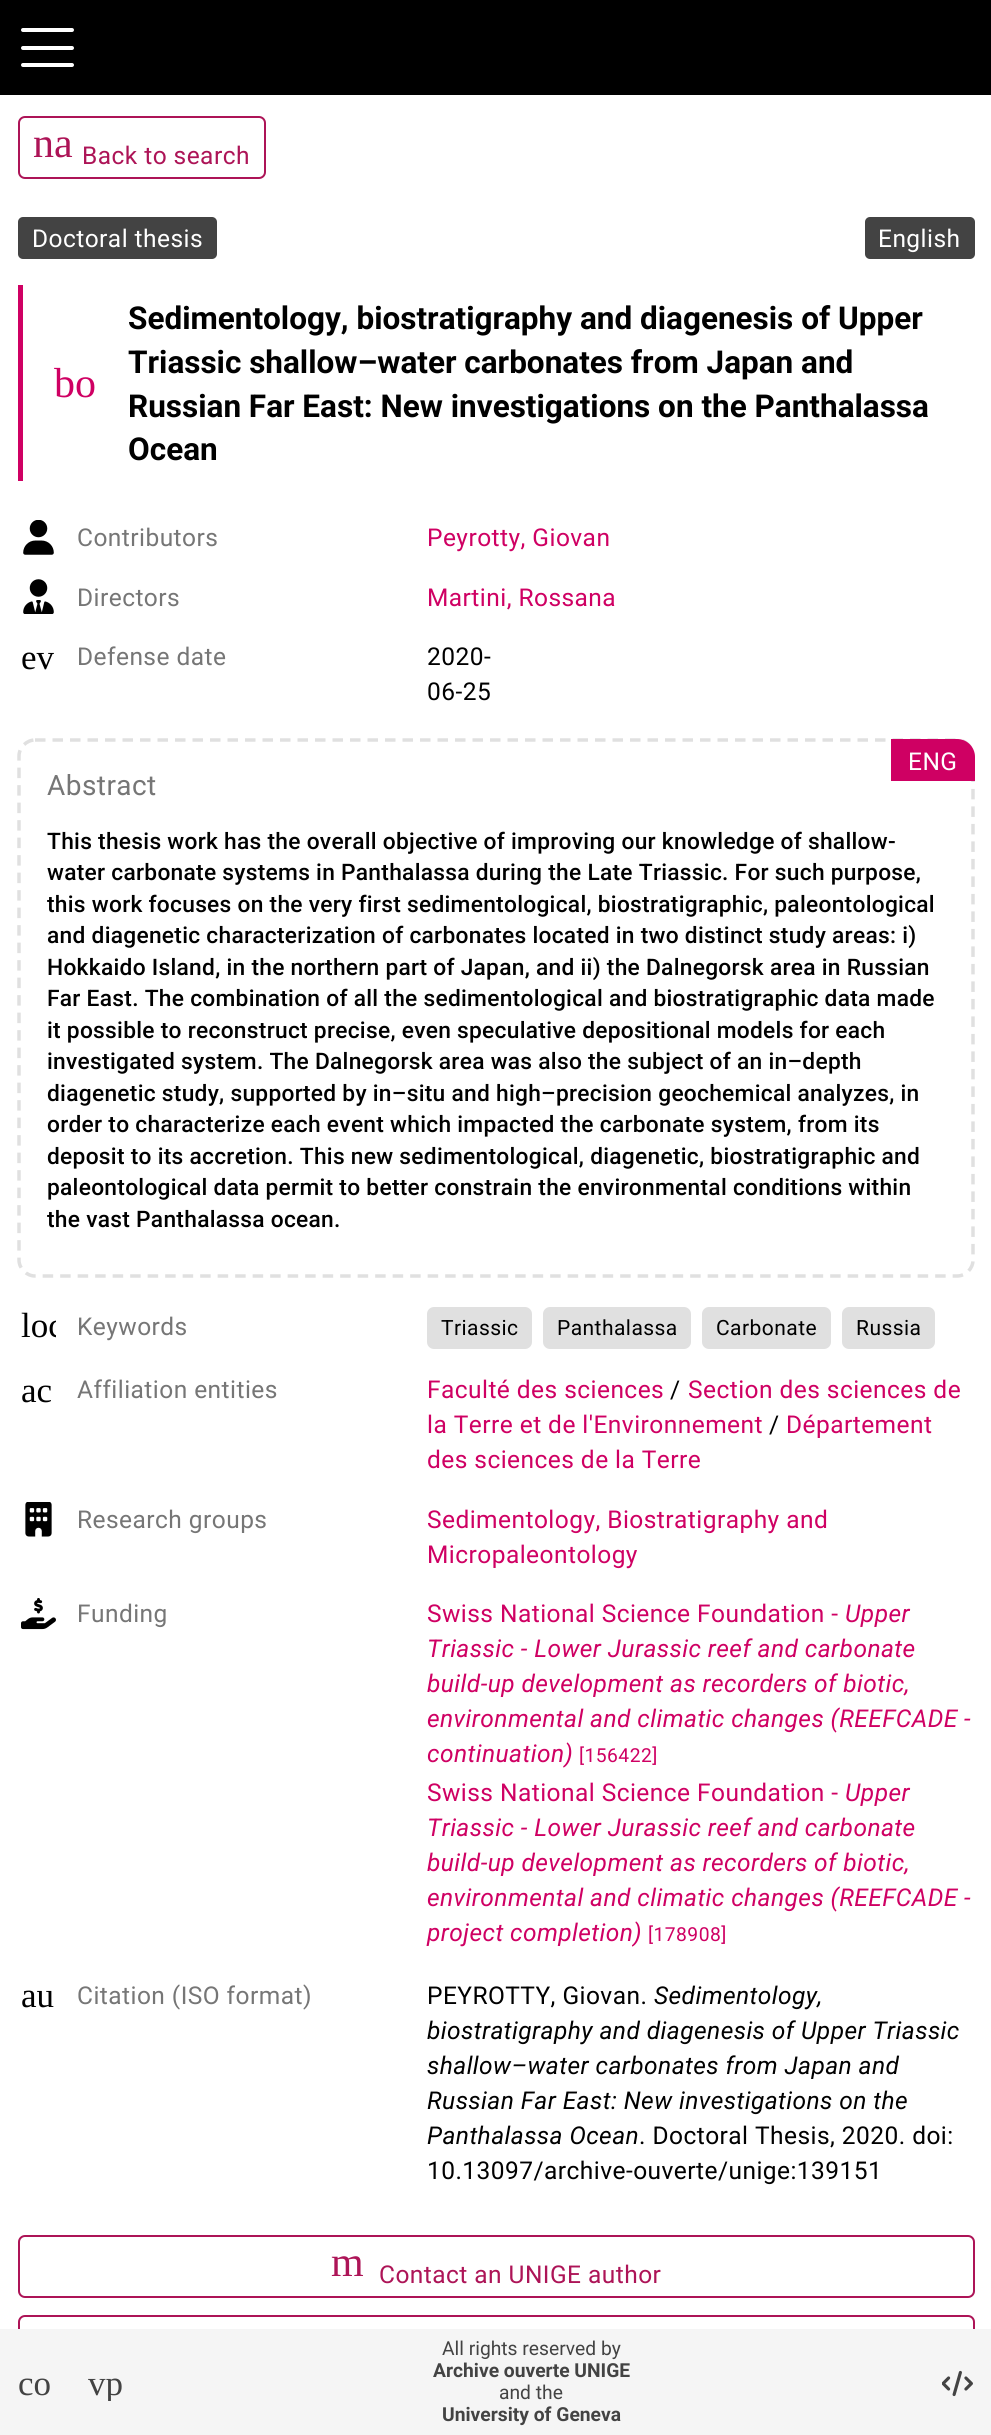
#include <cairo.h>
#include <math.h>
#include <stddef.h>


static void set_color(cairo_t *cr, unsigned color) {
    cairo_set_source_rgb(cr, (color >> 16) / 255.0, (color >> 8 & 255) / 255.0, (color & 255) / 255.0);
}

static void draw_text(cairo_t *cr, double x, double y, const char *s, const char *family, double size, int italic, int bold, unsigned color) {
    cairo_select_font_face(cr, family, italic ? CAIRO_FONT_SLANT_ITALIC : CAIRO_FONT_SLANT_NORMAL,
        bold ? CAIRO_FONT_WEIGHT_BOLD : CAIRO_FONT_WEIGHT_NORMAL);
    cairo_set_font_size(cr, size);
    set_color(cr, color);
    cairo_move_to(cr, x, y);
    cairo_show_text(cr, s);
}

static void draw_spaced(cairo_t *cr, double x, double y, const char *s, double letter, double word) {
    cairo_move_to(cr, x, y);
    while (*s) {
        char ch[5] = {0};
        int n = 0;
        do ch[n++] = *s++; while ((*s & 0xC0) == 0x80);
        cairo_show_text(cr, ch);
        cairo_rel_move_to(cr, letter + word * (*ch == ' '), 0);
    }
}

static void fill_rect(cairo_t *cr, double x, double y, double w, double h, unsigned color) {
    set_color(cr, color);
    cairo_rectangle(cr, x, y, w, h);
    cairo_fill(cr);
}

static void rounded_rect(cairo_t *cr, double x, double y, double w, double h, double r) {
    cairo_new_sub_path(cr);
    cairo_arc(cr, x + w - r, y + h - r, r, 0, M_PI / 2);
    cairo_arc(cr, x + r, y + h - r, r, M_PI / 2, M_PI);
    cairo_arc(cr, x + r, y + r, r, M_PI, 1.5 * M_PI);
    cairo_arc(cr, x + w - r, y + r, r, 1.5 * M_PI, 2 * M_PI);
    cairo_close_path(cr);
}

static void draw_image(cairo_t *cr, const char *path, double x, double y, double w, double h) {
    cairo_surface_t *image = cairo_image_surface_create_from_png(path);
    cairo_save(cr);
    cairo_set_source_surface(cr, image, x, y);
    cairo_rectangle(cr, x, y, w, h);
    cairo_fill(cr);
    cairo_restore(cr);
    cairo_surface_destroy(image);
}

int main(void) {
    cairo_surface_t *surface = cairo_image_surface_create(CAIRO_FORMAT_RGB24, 991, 2435);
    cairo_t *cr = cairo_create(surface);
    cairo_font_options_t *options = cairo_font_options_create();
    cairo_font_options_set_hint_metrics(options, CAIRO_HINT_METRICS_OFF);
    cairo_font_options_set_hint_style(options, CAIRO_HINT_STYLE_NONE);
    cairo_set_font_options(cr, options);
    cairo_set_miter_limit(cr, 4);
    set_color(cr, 0xFFFFFF);
    cairo_paint(cr);
    fill_rect(cr, 0, 0, 991, 95, 0x000000);
    set_color(cr, 0xFFFFFF);
    rounded_rect(cr, 21, 28, 53, 4, 2);
    cairo_fill(cr);
    rounded_rect(cr, 21, 46, 53, 4, 2);
    cairo_fill(cr);
    rounded_rect(cr, 21, 63, 53, 4, 2);
    cairo_fill(cr);
    rounded_rect(cr, 19, 117, 246, 61, 6);
    set_color(cr, 0xAD1457);
    cairo_stroke(cr);
    draw_text(cr, 33, 157, "na", "Liberation Serif", 42, 0, 0, 0xAD1457);
    cairo_select_font_face(cr, "Roboto", CAIRO_FONT_SLANT_NORMAL, CAIRO_FONT_WEIGHT_NORMAL);
    cairo_set_font_size(cr, 24.5);
    draw_spaced(cr, 82, 164, "Back to search", 0.45, 0);
    set_color(cr, 0x434343);
    rounded_rect(cr, 18, 217, 199, 42, 5);
    cairo_fill(cr);
    set_color(cr, 0xFFFFFF);
    draw_spaced(cr, 32, 247, "Doctoral thesis", 0.45, 0);
    set_color(cr, 0x434343);
    rounded_rect(cr, 865, 217, 110, 42, 5);
    cairo_fill(cr);
    set_color(cr, 0xFFFFFF);
    draw_spaced(cr, 878, 247, "English", 0.45, 0);
    fill_rect(cr, 18, 285, 5, 196, 0xCF0063);
    draw_text(cr, 54, 397, "bo", "Liberation Serif", 42, 0, 0, 0xCF0063);
    draw_text(cr, 128, 329, "Sedimentology, biostratigraphy and diagenesis of Upper", "Roboto", 31.5, 0, 1, 0x000000);
    draw_text(cr, 128, 373, "Triassic shallow–water carbonates from Japan and", "Roboto", 31.5, 0, 1, 0x000000);
    draw_text(cr, 128, 417, "Russian Far East: New investigations on the Panthalassa", "Roboto", 31.5, 0, 1, 0x000000);
    draw_text(cr, 128, 460, "Ocean", "Roboto", 31.5, 0, 1, 0x000000);
    draw_image(cr, "assets/img1.png", 23, 520, 31, 35);
    cairo_select_font_face(cr, "Roboto", CAIRO_FONT_SLANT_NORMAL, CAIRO_FONT_WEIGHT_NORMAL);
    cairo_set_font_size(cr, 24.5);
    set_color(cr, 0x767676);
    draw_spaced(cr, 77, 546, "Contributors", 0.45, 0);
    set_color(cr, 0xCF0063);
    draw_spaced(cr, 427, 546, "Peyrotty, Giovan", 0.45, 0);
    draw_image(cr, "assets/img2.png", 23, 579, 31, 35);
    set_color(cr, 0x767676);
    draw_spaced(cr, 77, 606, "Directors", 0.45, 0);
    set_color(cr, 0xCF0063);
    draw_spaced(cr, 427, 606, "Martini, Rossana", 0.45, 0);
    draw_text(cr, 21, 669, "ev", "Liberation Serif", 35, 0, 0, 0x000000);
    cairo_select_font_face(cr, "Roboto", CAIRO_FONT_SLANT_NORMAL, CAIRO_FONT_WEIGHT_NORMAL);
    cairo_set_font_size(cr, 24.5);
    set_color(cr, 0x767676);
    draw_spaced(cr, 77, 665, "Defense date", 0.45, 0);
    set_color(cr, 0x000000);
    draw_spaced(cr, 427, 665, "2020-", 0.45, 0);
    draw_spaced(cr, 427, 700, "06-25", 0.45, 0);
    cairo_new_path(cr);
    cairo_move_to(cr, 35, 740);
    cairo_line_to(cr, 957, 740);
    cairo_curve_to(cr, 966, 740, 973, 747.5, 973, 756);
    cairo_line_to(cr, 973, 1260);
    cairo_curve_to(cr, 973, 1268.5, 966, 1276, 957, 1276);
    cairo_line_to(cr, 35, 1276);
    cairo_curve_to(cr, 26.5, 1276, 19, 1268.5, 19, 1260);
    cairo_line_to(cr, 19, 756);
    cairo_curve_to(cr, 19, 747.5, 26.5, 740, 35, 740);
    cairo_close_path(cr);
    set_color(cr, 0xE0E0E0);
    cairo_set_line_width(cr, 3.5);
    cairo_set_dash(cr, (double[]){10.5, 7}, 2, 0);
    cairo_stroke(cr);
    set_color(cr, 0xCF0063);
    cairo_new_path(cr);
    cairo_move_to(cr, 891, 739);
    cairo_line_to(cr, 957, 739);
    cairo_curve_to(cr, 967, 739, 975, 747, 975, 757);
    cairo_line_to(cr, 975, 781);
    cairo_line_to(cr, 891, 781);
    cairo_close_path(cr);
    cairo_fill(cr);
    set_color(cr, 0xFFFFFF);
    draw_spaced(cr, 908, 770, "ENG", 0.45, 0);
    cairo_set_font_size(cr, 28);
    set_color(cr, 0x767676);
    draw_spaced(cr, 47, 795, "Abstract", 0.45, 0);
    cairo_select_font_face(cr, "Roboto Medium", CAIRO_FONT_SLANT_NORMAL, CAIRO_FONT_WEIGHT_NORMAL);
    cairo_set_font_size(cr, 22.75);
    set_color(cr, 0x000000);
    draw_spaced(cr, 47, 849, "This thesis work has the overall objective of improving our knowledge of shallow-", 0.28, 0);
    draw_spaced(cr, 47, 880, "water carbonate systems in Panthalassa during the Late Triassic. For such purpose,", 0.28, 0);
    draw_spaced(cr, 47, 912, "this work focuses on the very first sedimentological, biostratigraphic, paleontological", 0.28, 0);
    draw_spaced(cr, 47, 943, "and diagenetic characterization of carbonates located in two distinct study areas: i)", 0.28, 0);
    draw_spaced(cr, 47, 975, "Hokkaido Island, in the northern part of Japan, and ii) the Dalnegorsk area in Russian", 0.28, 0);
    draw_spaced(cr, 47, 1006, "Far East. The combination of all the sedimentological and biostratigraphic data made", 0.28, 0);
    draw_spaced(cr, 47, 1038, "it possible to reconstruct precise, even speculative depositional models for each", 0.28, 0);
    draw_spaced(cr, 47, 1069, "investigated system. The Dalnegorsk area was also the subject of an in–depth", 0.28, 0);
    draw_spaced(cr, 47, 1101, "diagenetic study, supported by in–situ and high–precision geochemical analyzes, in", 0.28, 0);
    draw_spaced(cr, 47, 1132, "order to characterize each event which impacted the carbonate system, from its", 0.28, 0);
    draw_spaced(cr, 47, 1164, "deposit to its accretion. This new sedimentological, diagenetic, biostratigraphic and", 0.28, 0);
    draw_spaced(cr, 47, 1195, "paleontological data permit to better constrain the environmental conditions within", 0.28, 0);
    draw_spaced(cr, 47, 1227, "the vast Panthalassa ocean.", 0.28, 0);
    cairo_save(cr);
    cairo_rectangle(cr, 21, 1307, 35, 35);
    cairo_clip(cr);
    draw_text(cr, 21, 1337, "loc", "Liberation Serif", 35, 0, 0, 0x000000);
    cairo_restore(cr);
    cairo_select_font_face(cr, "Roboto", CAIRO_FONT_SLANT_NORMAL, CAIRO_FONT_WEIGHT_NORMAL);
    cairo_set_font_size(cr, 24.5);
    set_color(cr, 0x767676);
    draw_spaced(cr, 77, 1335, "Keywords", 0.45, 0);
    set_color(cr, 0xE0E0E0);
    rounded_rect(cr, 427, 1307, 105, 42, 7);
    cairo_fill(cr);
    cairo_set_font_size(cr, 21);
    set_color(cr, 0x000000);
    draw_spaced(cr, 441, 1335, "Triassic", 0.45, 0);
    set_color(cr, 0xE0E0E0);
    rounded_rect(cr, 543, 1307, 148, 42, 7);
    cairo_fill(cr);
    set_color(cr, 0x000000);
    draw_spaced(cr, 557, 1335, "Panthalassa", 0.45, 0);
    set_color(cr, 0xE0E0E0);
    rounded_rect(cr, 702, 1307, 129, 42, 7);
    cairo_fill(cr);
    set_color(cr, 0x000000);
    draw_spaced(cr, 716, 1335, "Carbonate", 0.45, 0);
    set_color(cr, 0xE0E0E0);
    rounded_rect(cr, 842, 1307, 93, 42, 7);
    cairo_fill(cr);
    set_color(cr, 0x000000);
    draw_spaced(cr, 856, 1335, "Russia", 0.45, 0);
    draw_text(cr, 21, 1402, "ac", "Liberation Serif", 35, 0, 0, 0x000000);
    cairo_select_font_face(cr, "Roboto", CAIRO_FONT_SLANT_NORMAL, CAIRO_FONT_WEIGHT_NORMAL);
    cairo_set_font_size(cr, 24.5);
    set_color(cr, 0x767676);
    draw_spaced(cr, 77, 1398, "Affiliation entities", 0.45, 0);
    set_color(cr, 0xCF0063);
    draw_spaced(cr, 427, 1398, "Faculté des sciences", 0.45, 0);
    set_color(cr, 0x000000);
    draw_spaced(cr, 670, 1398, "/", 0.45, 0);
    set_color(cr, 0xCF0063);
    draw_spaced(cr, 688, 1398, "Section des sciences de", 0.45, 0);
    draw_spaced(cr, 427, 1433, "la Terre et de l'Environnement", 0.45, 0);
    set_color(cr, 0x000000);
    draw_spaced(cr, 769, 1433, "/", 0.45, 0);
    set_color(cr, 0xCF0063);
    draw_spaced(cr, 786, 1433, "Département", 0.45, 0);
    draw_spaced(cr, 427, 1468, "des sciences de la Terre", 0.45, 0);
    draw_image(cr, "assets/img3.png", 25, 1502, 27, 35);
    set_color(cr, 0x767676);
    draw_spaced(cr, 77, 1528, "Research groups", 0.45, 0);
    set_color(cr, 0xCF0063);
    draw_spaced(cr, 427, 1528, "Sedimentology, Biostratigraphy and", 0.45, 0);
    draw_spaced(cr, 427, 1563, "Micropaleontology", 0.45, 0);
    draw_image(cr, "assets/img4.png", 21, 1598, 35, 32);
    set_color(cr, 0x767676);
    draw_spaced(cr, 77, 1622, "Funding", 0.45, 0);
    set_color(cr, 0xCF0063);
    draw_spaced(cr, 427, 1622, "Swiss National Science Foundation -", 0.45, 0);
    cairo_select_font_face(cr, "Roboto", CAIRO_FONT_SLANT_ITALIC, CAIRO_FONT_WEIGHT_NORMAL);
    draw_spaced(cr, 845, 1622, "Upper", 0.45, 0);
    draw_spaced(cr, 427, 1657, "Triassic - Lower Jurassic reef and carbonate", 0.45, 0);
    draw_spaced(cr, 427, 1692, "build-up development as recorders of biotic,", 0.45, 0);
    draw_spaced(cr, 427, 1727, "environmental and climatic changes (REEFCADE -", 0.45, 0);
    draw_spaced(cr, 427, 1762, "continuation)", 0.45, 0);
    cairo_select_font_face(cr, "Roboto", CAIRO_FONT_SLANT_NORMAL, CAIRO_FONT_WEIGHT_NORMAL);
    cairo_set_font_size(cr, 19.25);
    draw_spaced(cr, 579, 1762, "[156422]", 0.45, 0);
    cairo_set_font_size(cr, 24.5);
    draw_spaced(cr, 427, 1801, "Swiss National Science Foundation -", 0.45, 0);
    cairo_select_font_face(cr, "Roboto", CAIRO_FONT_SLANT_ITALIC, CAIRO_FONT_WEIGHT_NORMAL);
    draw_spaced(cr, 845, 1801, "Upper", 0.45, 0);
    draw_spaced(cr, 427, 1836, "Triassic - Lower Jurassic reef and carbonate", 0.45, 0);
    draw_spaced(cr, 427, 1871, "build-up development as recorders of biotic,", 0.45, 0);
    draw_spaced(cr, 427, 1906, "environmental and climatic changes (REEFCADE -", 0.45, 0);
    draw_spaced(cr, 427, 1941, "project completion)", 0.45, 0);
    cairo_select_font_face(cr, "Roboto", CAIRO_FONT_SLANT_NORMAL, CAIRO_FONT_WEIGHT_NORMAL);
    cairo_set_font_size(cr, 19.25);
    draw_spaced(cr, 648, 1941, "[178908]", 0.45, 0);
    draw_text(cr, 21, 2007, "au", "Liberation Serif", 35, 0, 0, 0x000000);
    cairo_select_font_face(cr, "Roboto", CAIRO_FONT_SLANT_NORMAL, CAIRO_FONT_WEIGHT_NORMAL);
    cairo_set_font_size(cr, 24.5);
    set_color(cr, 0x767676);
    draw_spaced(cr, 77, 2004, "Citation (ISO format)", 0.45, 0);
    set_color(cr, 0x000000);
    draw_spaced(cr, 427, 2004, "PEYROTTY, Giovan.", 0.45, 0);
    cairo_select_font_face(cr, "Roboto", CAIRO_FONT_SLANT_ITALIC, CAIRO_FONT_WEIGHT_NORMAL);
    draw_spaced(cr, 654, 2004, "Sedimentology,", 0.45, 0);
    draw_spaced(cr, 427, 2039, "biostratigraphy and diagenesis of Upper Triassic", 0.45, 0);
    draw_spaced(cr, 427, 2074, "shallow–water carbonates from Japan and", 0.45, 0);
    draw_spaced(cr, 427, 2109, "Russian Far East: New investigations on the", 0.45, 0);
    draw_spaced(cr, 427, 2144, "Panthalassa Ocean", 0.45, 0);
    cairo_select_font_face(cr, "Roboto", CAIRO_FONT_SLANT_NORMAL, CAIRO_FONT_WEIGHT_NORMAL);
    draw_spaced(cr, 639, 2144, ". Doctoral Thesis, 2020. doi:", 0.45, 0);
    draw_spaced(cr, 427, 2179, "10.13097/archive-ouverte/unige:139151", 0.45, 0);
    rounded_rect(cr, 19, 2236, 955, 61, 6);
    set_color(cr, 0xAD1457);
    cairo_set_line_width(cr, 2);
    cairo_set_dash(cr, NULL, 0, 0);
    cairo_stroke(cr);
    draw_text(cr, 331, 2276, "m", "Liberation Serif", 42, 0, 0, 0xAD1457);
    cairo_select_font_face(cr, "Roboto", CAIRO_FONT_SLANT_NORMAL, CAIRO_FONT_WEIGHT_NORMAL);
    cairo_set_font_size(cr, 24.5);
    draw_spaced(cr, 379, 2283, "Contact an UNIGE author", 0.45, 0);
    rounded_rect(cr, 19, 2316, 955, 61, 6);
    cairo_stroke(cr);
    fill_rect(cr, 0, 2329, 991, 106, 0xF5F5F5);
    draw_text(cr, 18, 2395, "co", "Liberation Serif", 35, 0, 0, 0x434343);
    cairo_save(cr);
    cairo_rectangle(cr, 88, 2366, 35, 35);
    cairo_clip(cr);
    draw_text(cr, 88, 2395, "vp", "Liberation Serif", 35, 0, 0, 0x434343);
    cairo_restore(cr);
    draw_text(cr, 442, 2355, "All rights reserved by", "Roboto", 19.25, 0, 0, 0x434343);
    draw_text(cr, 433, 2377, "Archive ouverte UNIGE", "Roboto", 19.25, 0, 1, 0x434343);
    draw_text(cr, 499, 2399, "and the", "Roboto", 19.25, 0, 0, 0x434343);
    draw_text(cr, 442, 2421, "University of Geneva", "Roboto", 19.25, 0, 1, 0x434343);
    draw_image(cr, "assets/img5.png", 942, 2370, 31, 27);
    cairo_surface_write_to_png(surface, "output.png");
    cairo_font_options_destroy(options);
    cairo_destroy(cr);
    cairo_surface_destroy(surface);
    return 0;
}
